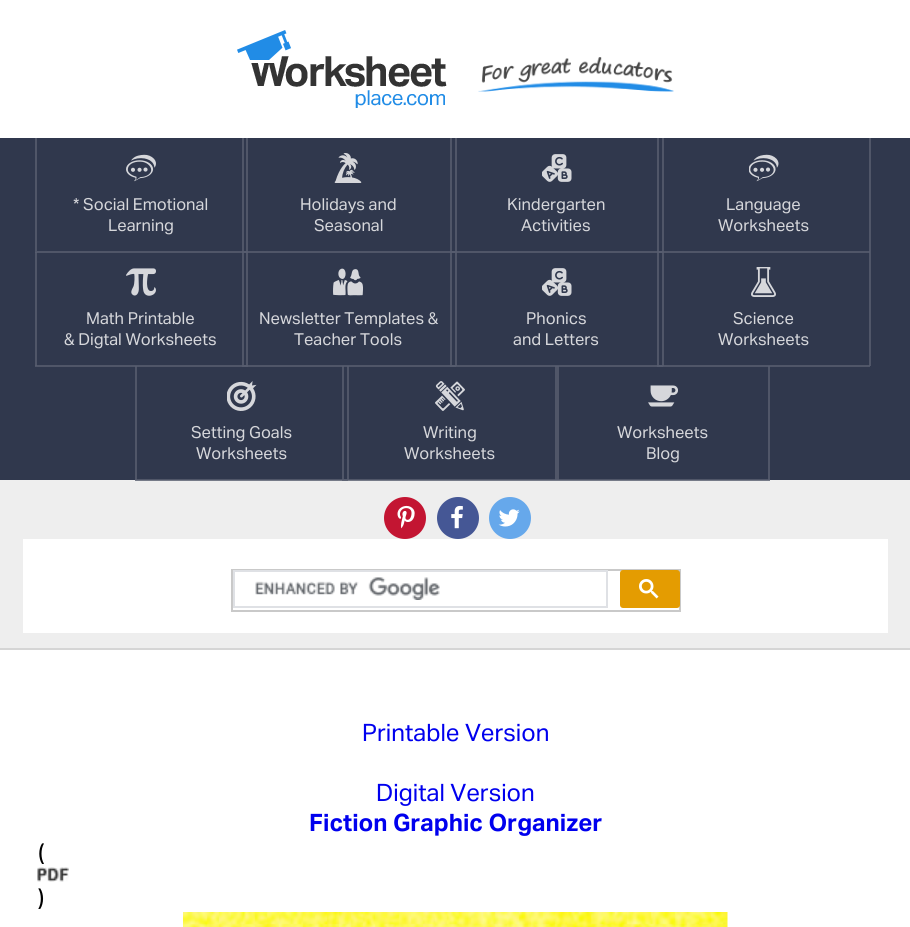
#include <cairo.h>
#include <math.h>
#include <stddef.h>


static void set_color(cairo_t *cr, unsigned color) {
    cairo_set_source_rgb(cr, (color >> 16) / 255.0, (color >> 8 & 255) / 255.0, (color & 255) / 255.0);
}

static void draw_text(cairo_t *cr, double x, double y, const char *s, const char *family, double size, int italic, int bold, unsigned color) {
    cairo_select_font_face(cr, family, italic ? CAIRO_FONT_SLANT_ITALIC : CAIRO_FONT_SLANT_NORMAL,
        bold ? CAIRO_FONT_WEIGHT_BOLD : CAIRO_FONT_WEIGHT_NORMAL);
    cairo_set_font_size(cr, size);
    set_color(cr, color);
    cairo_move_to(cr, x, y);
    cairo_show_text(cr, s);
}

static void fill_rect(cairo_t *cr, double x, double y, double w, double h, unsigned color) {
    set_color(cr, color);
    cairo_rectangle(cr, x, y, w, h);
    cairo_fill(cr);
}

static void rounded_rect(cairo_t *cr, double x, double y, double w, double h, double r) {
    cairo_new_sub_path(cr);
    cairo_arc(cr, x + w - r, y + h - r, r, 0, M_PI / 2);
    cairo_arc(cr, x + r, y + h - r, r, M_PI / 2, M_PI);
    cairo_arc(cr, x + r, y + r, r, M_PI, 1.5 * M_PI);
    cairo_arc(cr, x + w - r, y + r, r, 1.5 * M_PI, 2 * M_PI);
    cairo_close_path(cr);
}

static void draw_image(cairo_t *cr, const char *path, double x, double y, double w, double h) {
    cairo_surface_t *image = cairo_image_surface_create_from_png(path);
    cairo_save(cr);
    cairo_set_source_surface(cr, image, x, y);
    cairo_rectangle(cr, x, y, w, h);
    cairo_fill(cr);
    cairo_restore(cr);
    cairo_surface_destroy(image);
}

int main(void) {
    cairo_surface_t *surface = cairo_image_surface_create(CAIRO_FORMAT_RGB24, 910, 927);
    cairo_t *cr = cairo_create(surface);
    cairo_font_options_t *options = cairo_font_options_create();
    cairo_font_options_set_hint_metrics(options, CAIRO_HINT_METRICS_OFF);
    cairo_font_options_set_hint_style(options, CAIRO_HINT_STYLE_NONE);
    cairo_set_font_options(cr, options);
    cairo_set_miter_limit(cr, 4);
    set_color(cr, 0xFFFFFF);
    cairo_paint(cr);
    draw_image(cr, "assets/img1.png", 237, 30, 210, 78);
    draw_image(cr, "assets/img2.png", 478, 57, 196, 35);
    fill_rect(cr, 0, 138, 910, 342, 0x30384D);
    fill_rect(cr, 557, 366, 2, 114, 0x505668);
    fill_rect(cr, 557, 479, 213, 1, 0x505668);
    fill_rect(cr, 557, 479, 2, 1, 0x565C6E);
    fill_rect(cr, 768, 366, 2, 114, 0x505668);
    fill_rect(cr, 768, 479, 2, 1, 0x565C6E);
    fill_rect(cr, 342, 366, 2, 114, 0x505668);
    fill_rect(cr, 342, 479, 215, 1, 0x505668);
    fill_rect(cr, 555, 366, 2, 114, 0x505668);
    fill_rect(cr, 555, 479, 2, 1, 0x565C6E);
    fill_rect(cr, 135, 366, 2, 114, 0x505668);
    fill_rect(cr, 135, 479, 213, 1, 0x505668);
    fill_rect(cr, 342, 479, 6, 1, 0x565C6E);
    fill_rect(cr, 135, 479, 2, 1, 0x565C6E);
    fill_rect(cr, 347, 366, 2, 114, 0x505668);
    fill_rect(cr, 347, 479, 2, 1, 0x565C6E);
    fill_rect(cr, 657, 138, 2, 228, 0x505668);
    fill_rect(cr, 657, 365, 213, 2, 0x505668);
    fill_rect(cr, 768, 366, 2, 1, 0x565C6E);
    fill_rect(cr, 869, 252, 2, 114, 0x505668);
    fill_rect(cr, 869, 365, 1, 1, 0x565C6E);
    fill_rect(cr, 450, 138, 2, 228, 0x505668);
    fill_rect(cr, 450, 365, 213, 2, 0x505668);
    fill_rect(cr, 555, 366, 4, 1, 0x565C6E);
    fill_rect(cr, 657, 365, 6, 2, 0x565C6E);
    fill_rect(cr, 662, 252, 2, 114, 0x505668);
    fill_rect(cr, 662, 365, 2, 1, 0x565C6E);
    fill_rect(cr, 242, 138, 2, 228, 0x505668);
    fill_rect(cr, 242, 365, 214, 2, 0x505668);
    fill_rect(cr, 342, 366, 2, 1, 0x565C6E);
    fill_rect(cr, 347, 366, 2, 1, 0x565C6E);
    fill_rect(cr, 450, 365, 6, 2, 0x565C6E);
    fill_rect(cr, 455, 252, 2, 114, 0x505668);
    fill_rect(cr, 455, 365, 2, 1, 0x565C6E);
    fill_rect(cr, 35, 252, 2, 114, 0x505668);
    fill_rect(cr, 246, 252, 2, 114, 0x505668);
    fill_rect(cr, 657, 251, 213, 2, 0x505668);
    fill_rect(cr, 869, 252, 1, 1, 0x565C6E);
    fill_rect(cr, 662, 252, 2, 1, 0x565C6E);
    fill_rect(cr, 450, 251, 213, 2, 0x505668);
    fill_rect(cr, 455, 252, 2, 1, 0x565C6E);
    fill_rect(cr, 657, 251, 6, 2, 0x565C6E);
    fill_rect(cr, 242, 251, 214, 2, 0x505668);
    fill_rect(cr, 450, 251, 6, 2, 0x565C6E);
    fill_rect(cr, 246, 138, 2, 114, 0x505668);
    fill_rect(cr, 35, 251, 213, 2, 0x505668);
    fill_rect(cr, 35, 252, 2, 1, 0x565C6E);
    fill_rect(cr, 242, 251, 6, 2, 0x565C6E);
    fill_rect(cr, 35, 138, 2, 114, 0x505668);
    draw_image(cr, "assets/img3.png", 126, 154, 30, 28);
    draw_text(cr, 73, 210, "* Social Emotional", "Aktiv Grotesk", 16.5, 0, 0, 0xD6D7DB);
    draw_text(cr, 108, 231, "Learning", "Aktiv Grotesk", 16.5, 0, 0, 0xD6D7DB);
    fill_rect(cr, 455, 138, 2, 114, 0x505668);
    fill_rect(cr, 455, 251, 2, 1, 0x565C6E);
    draw_image(cr, "assets/img4.png", 334, 153, 28, 30);
    draw_text(cr, 300, 210, "Holidays and", "Aktiv Grotesk", 16.5, 0, 0, 0xD6D7DB);
    draw_text(cr, 314, 231, "Seasonal", "Aktiv Grotesk", 16.5, 0, 0, 0xD6D7DB);
    fill_rect(cr, 662, 138, 2, 114, 0x505668);
    fill_rect(cr, 662, 251, 2, 1, 0x565C6E);
    draw_image(cr, "assets/img5.png", 542, 154, 30, 28);
    draw_text(cr, 507, 210, "Kindergarten", "Aktiv Grotesk", 16.5, 0, 0, 0xD6D7DB);
    draw_text(cr, 521, 231, "Activities", "Aktiv Grotesk", 16.5, 0, 0, 0xD6D7DB);
    fill_rect(cr, 869, 138, 2, 114, 0x505668);
    fill_rect(cr, 869, 251, 1, 1, 0x565C6E);
    draw_image(cr, "assets/img6.png", 749, 154, 30, 28);
    draw_text(cr, 726, 210, "Language", "Aktiv Grotesk", 16.5, 0, 0, 0xD6D7DB);
    draw_text(cr, 718, 231, "Worksheets", "Aktiv Grotesk", 16.5, 0, 0, 0xD6D7DB);
    fill_rect(cr, 35, 365, 213, 2, 0x505668);
    fill_rect(cr, 135, 366, 2, 1, 0x565C6E);
    fill_rect(cr, 242, 365, 6, 2, 0x565C6E);
    fill_rect(cr, 35, 365, 2, 1, 0x565C6E);
    draw_image(cr, "assets/img7.png", 126, 268, 30, 28);
    draw_text(cr, 86, 324, "Math Printable", "Aktiv Grotesk", 16.5, 0, 0, 0xD6D7DB);
    draw_text(cr, 64, 345, "& Digtal Worksheets", "Aktiv Grotesk", 16.5, 0, 0, 0xD6D7DB);
    draw_image(cr, "assets/img8.png", 333, 268, 30, 28);
    draw_text(cr, 259, 324, "Newsletter Templates &", "Aktiv Grotesk", 16.5, 0, 0, 0xD6D7DB);
    draw_text(cr, 294, 345, "Teacher Tools", "Aktiv Grotesk", 16.5, 0, 0, 0xD6D7DB);
    draw_image(cr, "assets/img5.png", 542, 268, 30, 28);
    draw_text(cr, 526, 324, "Phonics", "Aktiv Grotesk", 16.5, 0, 0, 0xD6D7DB);
    draw_text(cr, 513, 345, "and Letters", "Aktiv Grotesk", 16.5, 0, 0, 0xD6D7DB);
    draw_image(cr, "assets/img9.png", 751, 267, 25, 30);
    draw_text(cr, 733, 324, "Science", "Aktiv Grotesk", 16.5, 0, 0, 0xD6D7DB);
    draw_text(cr, 718, 345, "Worksheets", "Aktiv Grotesk", 16.5, 0, 0, 0xD6D7DB);
    draw_image(cr, "assets/img10.png", 227, 381, 30, 30);
    draw_text(cr, 191, 438, "Setting Goals", "Aktiv Grotesk", 16.5, 0, 0, 0xD6D7DB);
    draw_text(cr, 196, 459, "Worksheets", "Aktiv Grotesk", 16.5, 0, 0, 0xD6D7DB);
    draw_image(cr, "assets/img11.png", 435, 381, 30, 30);
    draw_text(cr, 423, 438, "Writing", "Aktiv Grotesk", 16.5, 0, 0, 0xD6D7DB);
    draw_text(cr, 404, 459, "Worksheets", "Aktiv Grotesk", 16.5, 0, 0, 0xD6D7DB);
    draw_image(cr, "assets/img12.png", 648, 385, 30, 22);
    draw_text(cr, 617, 438, "Worksheets", "Aktiv Grotesk", 16.5, 0, 0, 0xD6D7DB);
    draw_text(cr, 646, 459, "Blog", "Aktiv Grotesk", 16.5, 0, 0, 0xD6D7DB);
    fill_rect(cr, 0, 480, 910, 168, 0xEEEEEE);
    fill_rect(cr, 135, 480, 635, 1, 0x767B88);
    fill_rect(cr, 342, 480, 6, 1, 0x5E6474);
    fill_rect(cr, 0, 648, 910, 2, 0xD5D5D5);
    set_color(cr, 0xC31532);
    cairo_new_path(cr);
    cairo_arc(cr, 405, 518, 21, 0, 2 * M_PI);
    cairo_fill(cr);
    draw_image(cr, "assets/img13.png", 397, 505, 18, 24);
    set_color(cr, 0x455795);
    cairo_arc(cr, 458, 518, 21, 0, 2 * M_PI);
    cairo_fill(cr);
    draw_image(cr, "assets/img14.png", 451, 505, 12, 24);
    set_color(cr, 0x66A8EB);
    cairo_arc(cr, 510, 518, 21, 0, 2 * M_PI);
    cairo_fill(cr);
    draw_image(cr, "assets/img15.png", 498, 509, 22, 18);
    fill_rect(cr, 23, 539, 865, 94, 0xFFFFFF);
    cairo_rectangle(cr, 232, 570, 448, 41);
    set_color(cr, 0xC9C9C9);
    cairo_stroke(cr);
    cairo_rectangle(cr, 234, 571, 373, 36);
    set_color(cr, 0xDFE1E5);
    cairo_stroke(cr);
    draw_image(cr, "assets/img16.png", 255, 577, 185, 23);
    set_color(cr, 0xE49C01);
    rounded_rect(cr, 620, 570, 60, 38, 3);
    cairo_fill(cr);
    draw_image(cr, "assets/img17.png", 639, 579, 20, 20);
    draw_text(cr, 362, 741, "Printable Version", "Aktiv Grotesk", 24, 0, 0, 0x0000EE);
    draw_text(cr, 376, 801, "Digital Version", "Aktiv Grotesk", 24, 0, 0, 0x0000EE);
    draw_text(cr, 309, 831, "Fiction Graphic Organizer", "Aktiv Grotesk", 24, 0, 1, 0x0000EE);
    draw_text(cr, 38, 861, "(", "Aktiv Grotesk", 24, 0, 0, 0x000000);
    draw_image(cr, "assets/img18.png", 37, 867, 32, 15);
    draw_text(cr, 38, 906, ")", "Aktiv Grotesk", 24, 0, 0, 0x000000);
    draw_image(cr, "assets/img19.png", 183, 912, 545, 15);
    cairo_surface_write_to_png(surface, "output.png");
    cairo_font_options_destroy(options);
    cairo_destroy(cr);
    cairo_surface_destroy(surface);
    return 0;
}
